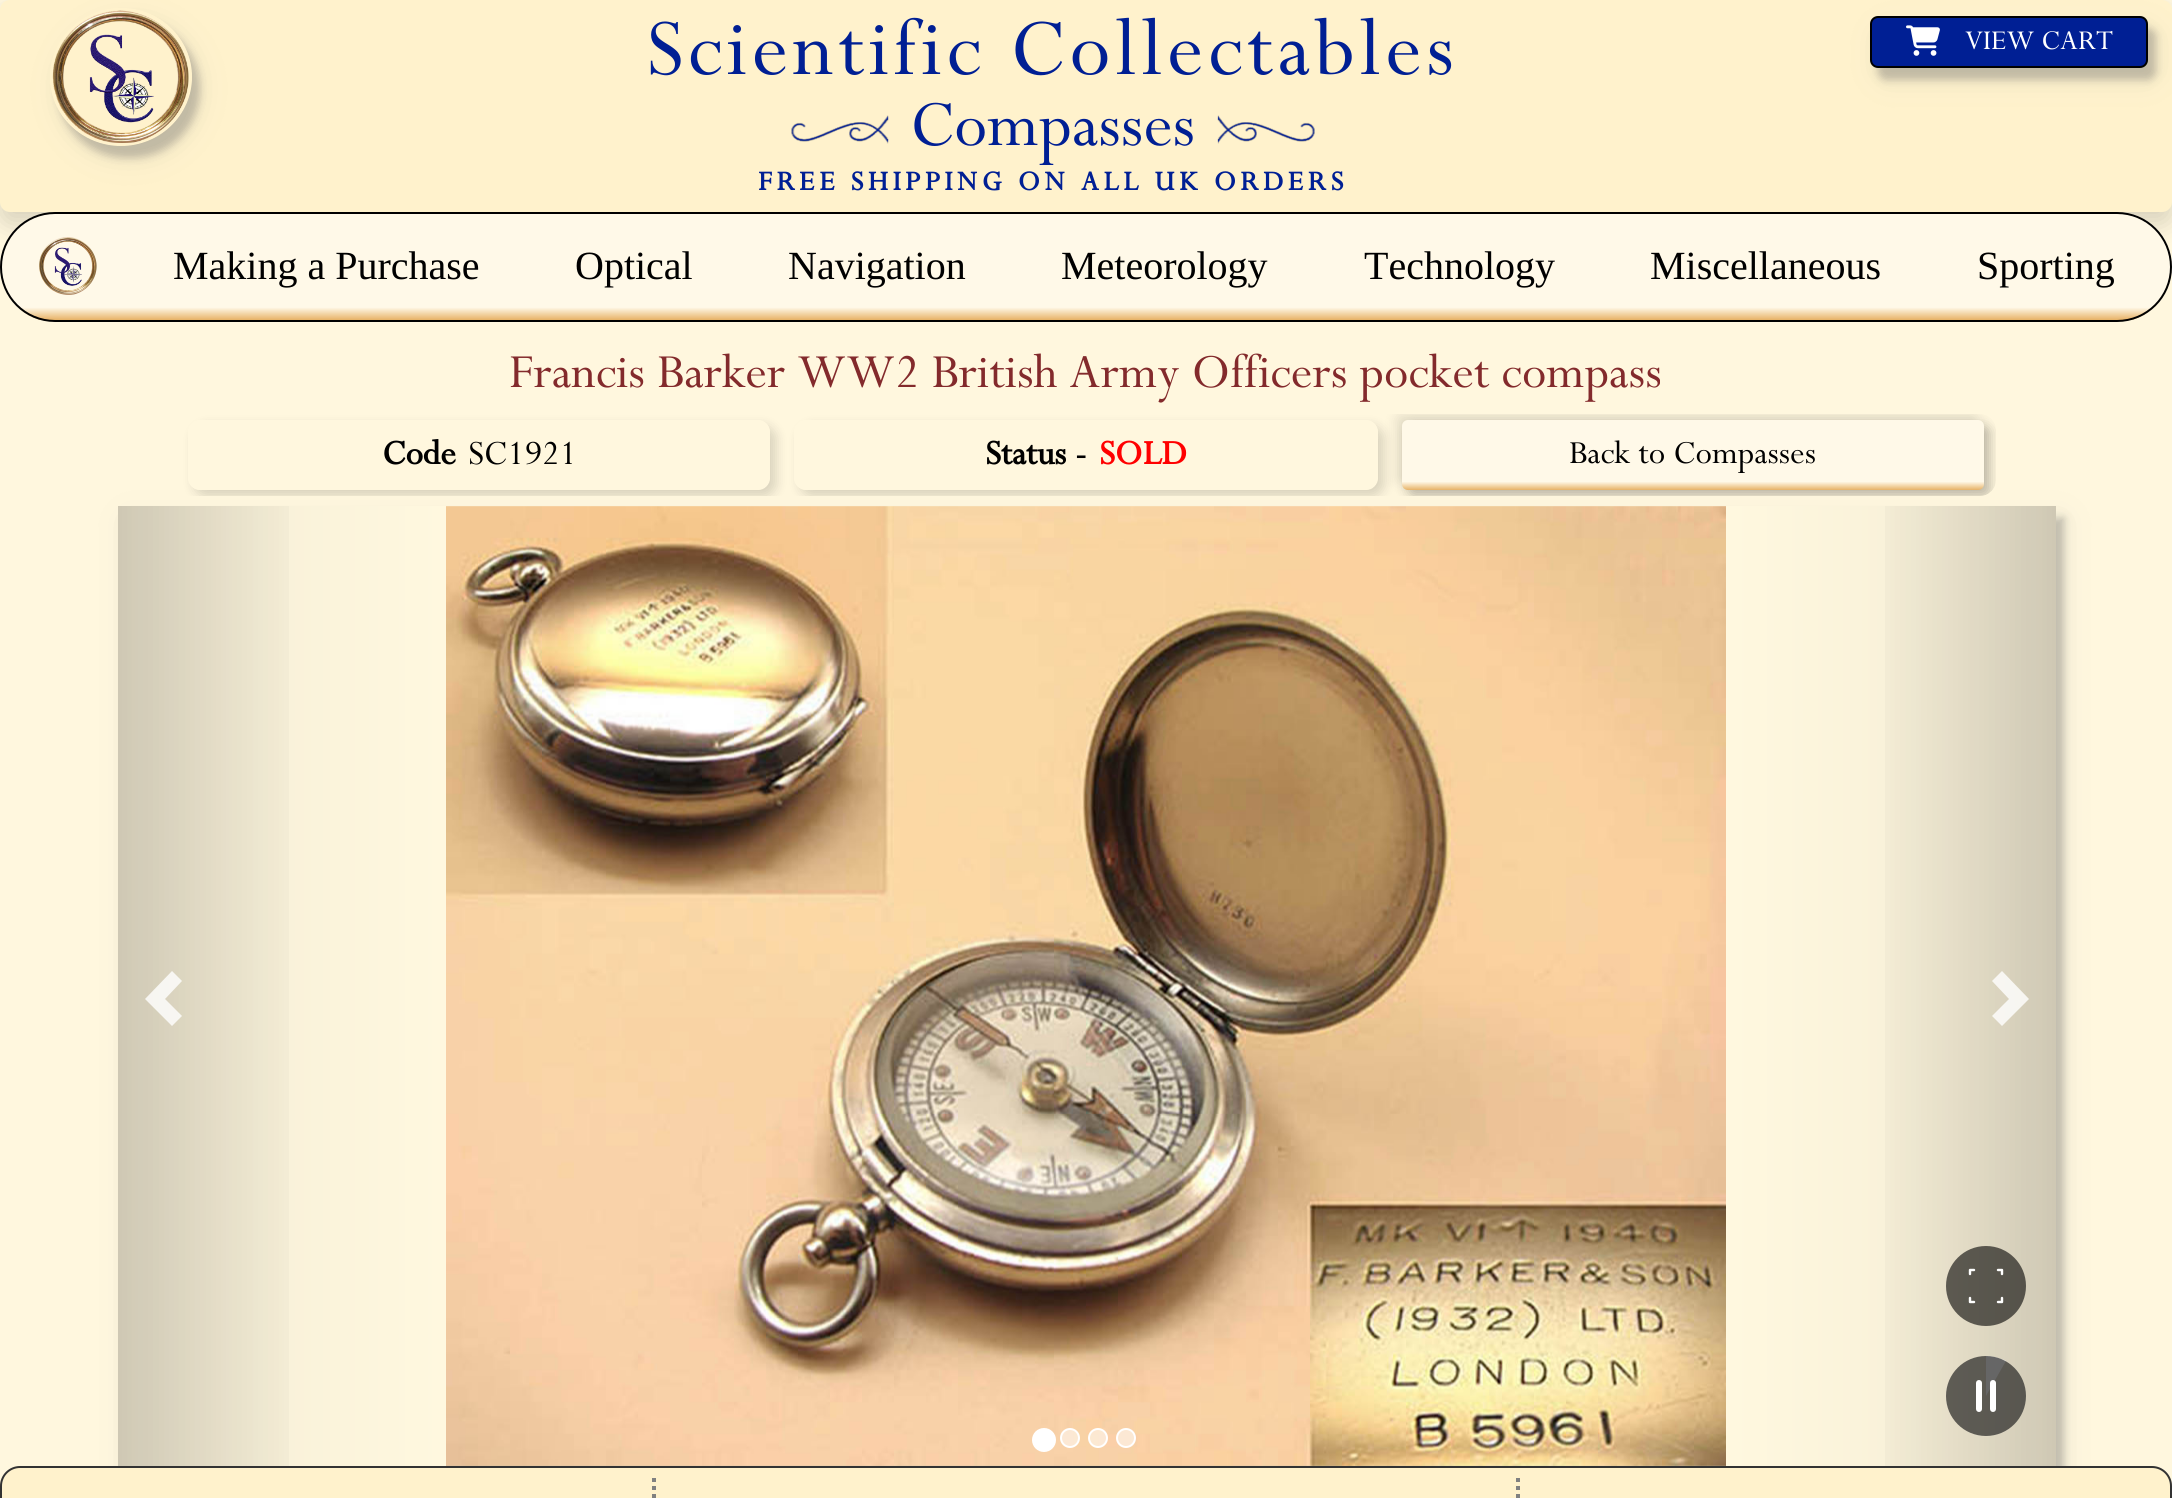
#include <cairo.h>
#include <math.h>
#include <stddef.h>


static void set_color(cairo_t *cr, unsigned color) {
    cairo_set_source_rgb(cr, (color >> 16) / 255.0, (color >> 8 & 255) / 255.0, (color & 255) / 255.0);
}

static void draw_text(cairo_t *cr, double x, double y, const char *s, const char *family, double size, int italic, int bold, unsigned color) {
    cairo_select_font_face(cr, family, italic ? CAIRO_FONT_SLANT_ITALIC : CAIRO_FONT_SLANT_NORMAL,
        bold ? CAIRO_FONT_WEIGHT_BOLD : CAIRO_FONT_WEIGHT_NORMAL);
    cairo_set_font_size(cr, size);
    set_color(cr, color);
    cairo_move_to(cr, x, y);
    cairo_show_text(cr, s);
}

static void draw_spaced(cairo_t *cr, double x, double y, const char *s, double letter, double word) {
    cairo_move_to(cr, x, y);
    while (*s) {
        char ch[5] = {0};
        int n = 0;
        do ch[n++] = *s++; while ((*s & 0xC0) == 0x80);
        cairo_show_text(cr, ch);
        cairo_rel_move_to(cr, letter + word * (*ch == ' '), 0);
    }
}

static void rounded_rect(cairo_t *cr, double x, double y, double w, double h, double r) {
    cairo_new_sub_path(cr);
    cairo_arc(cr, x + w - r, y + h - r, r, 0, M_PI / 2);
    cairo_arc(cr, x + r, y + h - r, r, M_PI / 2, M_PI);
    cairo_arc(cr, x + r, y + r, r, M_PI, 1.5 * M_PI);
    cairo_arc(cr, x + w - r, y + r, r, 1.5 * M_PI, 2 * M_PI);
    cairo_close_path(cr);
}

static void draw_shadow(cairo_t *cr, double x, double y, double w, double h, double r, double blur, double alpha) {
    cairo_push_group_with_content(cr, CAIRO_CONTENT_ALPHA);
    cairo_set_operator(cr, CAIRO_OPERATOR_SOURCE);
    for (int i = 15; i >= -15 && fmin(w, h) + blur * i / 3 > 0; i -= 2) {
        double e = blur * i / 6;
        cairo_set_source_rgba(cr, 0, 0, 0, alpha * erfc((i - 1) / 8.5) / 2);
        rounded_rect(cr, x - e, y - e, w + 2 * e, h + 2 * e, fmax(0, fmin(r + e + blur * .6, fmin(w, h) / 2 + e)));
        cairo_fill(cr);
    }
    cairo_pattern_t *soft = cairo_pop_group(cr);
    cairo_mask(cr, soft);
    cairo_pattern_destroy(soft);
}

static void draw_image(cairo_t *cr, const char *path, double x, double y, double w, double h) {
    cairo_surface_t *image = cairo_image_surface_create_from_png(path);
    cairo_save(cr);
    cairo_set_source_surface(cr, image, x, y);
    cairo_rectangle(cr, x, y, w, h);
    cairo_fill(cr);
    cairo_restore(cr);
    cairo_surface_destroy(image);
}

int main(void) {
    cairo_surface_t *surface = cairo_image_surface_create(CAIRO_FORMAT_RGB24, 2172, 1498);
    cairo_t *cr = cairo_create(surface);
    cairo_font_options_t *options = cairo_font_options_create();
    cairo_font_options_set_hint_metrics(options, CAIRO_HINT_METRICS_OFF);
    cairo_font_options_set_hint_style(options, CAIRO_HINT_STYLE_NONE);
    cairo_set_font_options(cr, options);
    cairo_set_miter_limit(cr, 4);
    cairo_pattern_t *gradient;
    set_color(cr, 0xFFF7DE);
    cairo_paint(cr);
    set_color(cr, 0x000000);
    draw_shadow(cr, 0, 12, 2172, 212, 10, 12, 0.15);
    set_color(cr, 0xFFF2CC);
    rounded_rect(cr, 0, 0, 2172, 212, 10);
    cairo_fill(cr);
    cairo_save(cr);
    cairo_set_fill_rule(cr, CAIRO_FILL_RULE_EVEN_ODD);
    cairo_new_path(cr);
    cairo_move_to(cr, 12, 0);
    cairo_line_to(cr, 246, 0);
    cairo_line_to(cr, 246, 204);
    cairo_line_to(cr, 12, 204);
    cairo_close_path(cr);
    cairo_move_to(cr, 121, 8);
    cairo_curve_to(cr, 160, 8, 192, 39, 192, 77);
    cairo_curve_to(cr, 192, 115, 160, 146, 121, 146);
    cairo_curve_to(cr, 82, 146, 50, 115, 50, 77);
    cairo_curve_to(cr, 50, 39, 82, 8, 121, 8);
    cairo_close_path(cr);
    cairo_clip(cr);
    set_color(cr, 0x969696);
    draw_shadow(cr, 58, 20, 142, 138, 69, 15, 0.17);
    cairo_restore(cr);
    cairo_save(cr);
    cairo_set_fill_rule(cr, CAIRO_FILL_RULE_EVEN_ODD);
    cairo_new_path(cr);
    cairo_move_to(cr, 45, 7);
    cairo_line_to(cr, 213, 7);
    cairo_line_to(cr, 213, 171);
    cairo_line_to(cr, 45, 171);
    cairo_close_path(cr);
    cairo_move_to(cr, 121, 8);
    cairo_curve_to(cr, 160, 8, 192, 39, 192, 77);
    cairo_curve_to(cr, 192, 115, 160, 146, 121, 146);
    cairo_curve_to(cr, 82, 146, 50, 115, 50, 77);
    cairo_curve_to(cr, 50, 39, 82, 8, 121, 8);
    cairo_close_path(cr);
    cairo_clip(cr);
    set_color(cr, 0x646464);
    draw_shadow(cr, 58, 20, 142, 138, 69, 4, 0.34);
    cairo_restore(cr);
    draw_image(cr, "assets/img1.png", 52, 10, 137, 133);
    cairo_select_font_face(cr, "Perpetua", CAIRO_FONT_SLANT_NORMAL, CAIRO_FONT_WEIGHT_NORMAL);
    cairo_set_font_size(cr, 89.5);
    set_color(cr, 0x001F94);
    draw_spaced(cr, 646, 74, "Scientific Collectables", 4.5, 0);
    draw_image(cr, "assets/img2.png", 791, 115, 98, 29);
    draw_text(cr, 910, 145, "Compasses", "Perpetua", 72, 0, 0, 0x001F94);
    draw_image(cr, "assets/img3.png", 1217, 115, 98, 29);
    cairo_select_font_face(cr, "Perpetua", CAIRO_FONT_SLANT_NORMAL, CAIRO_FONT_WEIGHT_BOLD);
    cairo_set_font_size(cr, 30.4);
    draw_spaced(cr, 758, 190, "FREE SHIPPING ON ALL UK ORDERS", 4.55, 0);
    set_color(cr, 0x969696);
    draw_shadow(cr, 1878, 28, 278, 52, 8, 15, 0.17);
    set_color(cr, 0x646464);
    draw_shadow(cr, 1878, 28, 278, 52, 8, 4, 0.34);
    set_color(cr, 0x001F94);
    rounded_rect(cr, 1871, 17, 276, 50, 7);
    cairo_fill_preserve(cr);
    set_color(cr, 0x000000);
    cairo_stroke(cr);
    draw_image(cr, "assets/img4.png", 1906, 25, 34, 31);
    draw_text(cr, 1965, 49, "VIEW CART", "Perpetua", 30.4, 0, 0, 0xFFFFFF);
    cairo_save(cr);
    rounded_rect(cr, 0, 212, 2172, 110, 55);
    cairo_clip(cr);
    gradient = cairo_pattern_create_linear(1086, 214, 1086, 320);
    cairo_pattern_add_color_stop_rgba(gradient, 0.88, 1, 0.976, 0.91, 1);
    cairo_pattern_add_color_stop_rgba(gradient, 1, 0.906, 0.698, 0.4, 1);
    cairo_pattern_add_color_stop_rgba(gradient, 1, 0.482, 0.702, 0.816, 1);
    cairo_set_source(cr, gradient);
    cairo_pattern_destroy(gradient);
    cairo_rectangle(cr, 0, 214, 2172, 106);
    cairo_fill(cr);
    cairo_restore(cr);
    rounded_rect(cr, 1, 213, 2170, 108, 54);
    set_color(cr, 0x000000);
    cairo_stroke(cr);
    draw_image(cr, "assets/img5.png", 39, 237, 58, 58);
    draw_text(cr, 173, 279, "Making a Purchase", "Liberation Serif", 40, 0, 0, 0x000000);
    draw_text(cr, 575, 279, "Optical", "Liberation Serif", 40, 0, 0, 0x000000);
    draw_text(cr, 788, 279, "Navigation", "Liberation Serif", 40, 0, 0, 0x000000);
    draw_text(cr, 1061, 279, "Meteorology", "Liberation Serif", 40, 0, 0, 0x000000);
    draw_text(cr, 1364, 279, "Technology", "Liberation Serif", 40, 0, 0, 0x000000);
    draw_text(cr, 1650, 279, "Miscellaneous", "Liberation Serif", 40, 0, 0, 0x000000);
    draw_text(cr, 1977, 279, "Sporting", "Liberation Serif", 40, 0, 0, 0x000000);
    draw_text(cr, 509, 387, "Francis Barker WW2 British Army Officers pocket compass", "Perpetua", 53.3, 0, 0, 0x832A2C);
    cairo_save(cr);
    rounded_rect(cr, 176, 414, 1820, 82, 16);
    cairo_clip(cr);
    cairo_set_fill_rule(cr, CAIRO_FILL_RULE_EVEN_ODD);
    cairo_new_path(cr);
    cairo_move_to(cr, 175, 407);
    cairo_line_to(cr, 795, 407);
    cairo_line_to(cr, 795, 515);
    cairo_line_to(cr, 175, 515);
    cairo_close_path(cr);
    cairo_move_to(cr, 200, 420);
    cairo_line_to(cr, 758, 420);
    cairo_curve_to(cr, 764.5, 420, 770, 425.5, 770, 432);
    cairo_line_to(cr, 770, 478);
    cairo_curve_to(cr, 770, 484.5, 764.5, 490, 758, 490);
    cairo_line_to(cr, 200, 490);
    cairo_curve_to(cr, 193.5, 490, 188, 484.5, 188, 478);
    cairo_line_to(cr, 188, 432);
    cairo_curve_to(cr, 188, 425.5, 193.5, 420, 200, 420);
    cairo_close_path(cr);
    cairo_clip(cr);
    set_color(cr, 0x000000);
    draw_shadow(cr, 194, 426, 582, 70, 12, 6, 0.15);
    cairo_restore(cr);
    draw_text(cr, 382, 464, "Code", "Perpetua", 38, 0, 1, 0x000000);
    draw_text(cr, 468, 464, "SC1921", "Perpetua", 38, 0, 0, 0x000000);
    cairo_save(cr);
    rounded_rect(cr, 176, 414, 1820, 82, 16);
    cairo_clip(cr);
    cairo_set_fill_rule(cr, CAIRO_FILL_RULE_EVEN_ODD);
    cairo_new_path(cr);
    cairo_move_to(cr, 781, 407);
    cairo_line_to(cr, 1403, 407);
    cairo_line_to(cr, 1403, 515);
    cairo_line_to(cr, 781, 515);
    cairo_close_path(cr);
    cairo_move_to(cr, 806, 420);
    cairo_line_to(cr, 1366, 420);
    cairo_curve_to(cr, 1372.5, 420, 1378, 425.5, 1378, 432);
    cairo_line_to(cr, 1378, 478);
    cairo_curve_to(cr, 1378, 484.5, 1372.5, 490, 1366, 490);
    cairo_line_to(cr, 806, 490);
    cairo_curve_to(cr, 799.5, 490, 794, 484.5, 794, 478);
    cairo_line_to(cr, 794, 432);
    cairo_curve_to(cr, 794, 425.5, 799.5, 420, 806, 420);
    cairo_close_path(cr);
    cairo_clip(cr);
    set_color(cr, 0x000000);
    draw_shadow(cr, 800, 426, 584, 70, 12, 6, 0.15);
    cairo_restore(cr);
    draw_text(cr, 985, 464, "Status -", "Perpetua", 38, 0, 1, 0x000000);
    draw_text(cr, 1099, 464, "SOLD", "Perpetua", 38, 0, 1, 0xFF0000);
    cairo_save(cr);
    rounded_rect(cr, 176, 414, 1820, 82, 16);
    cairo_clip(cr);
    set_color(cr, 0x000000);
    draw_shadow(cr, 1408, 426, 582, 70, 6, 6, 0.25);
    draw_shadow(cr, 1396, 414, 582, 70, 6, 6, 0.1);
    cairo_restore(cr);
    gradient = cairo_pattern_create_linear(1693, 420, 1693, 490);
    cairo_pattern_add_color_stop_rgba(gradient, 0.88, 1, 0.976, 0.91, 1);
    cairo_pattern_add_color_stop_rgba(gradient, 1, 0.906, 0.698, 0.4, 1);
    cairo_pattern_add_color_stop_rgba(gradient, 1, 0.482, 0.702, 0.816, 1);
    cairo_set_source(cr, gradient);
    cairo_pattern_destroy(gradient);
    rounded_rect(cr, 1402, 420, 582, 70, 6);
    cairo_fill(cr);
    draw_text(cr, 1569, 463, "Back to Compasses", "Perpetua", 36, 0, 0, 0x000000);
    set_color(cr, 0x969696);
    draw_shadow(cr, 126, 518, 1938, 960, 0, 15, 0.17);
    set_color(cr, 0x646464);
    draw_shadow(cr, 126, 518, 1938, 960, 0, 4, 0.34);
    gradient = cairo_pattern_create_linear(118, 986, 446, 986);
    cairo_pattern_add_color_stop_rgba(gradient, 0, 0.953, 0.922, 0.831, 1);
    cairo_pattern_add_color_stop_rgba(gradient, 1, 1, 0.973, 0.875, 1);
    cairo_set_source(cr, gradient);
    cairo_pattern_destroy(gradient);
    cairo_rectangle(cr, 118, 506, 328, 960);
    cairo_fill(cr);
    gradient = cairo_pattern_create_linear(118, 986, 318, 986);
    cairo_pattern_add_color_stop_rgba(gradient, 0, 0, 0, 0, 0.15);
    cairo_pattern_add_color_stop_rgba(gradient, 1, 0, 0, 0, 0);
    cairo_set_source(cr, gradient);
    cairo_pattern_destroy(gradient);
    cairo_rectangle(cr, 118, 506, 171, 960);
    cairo_fill(cr);
    draw_image(cr, "assets/img6.png", 446, 506, 1280, 960);
    gradient = cairo_pattern_create_linear(2056, 986, 1726, 986);
    cairo_pattern_add_color_stop_rgba(gradient, 0, 0.953, 0.922, 0.831, 1);
    cairo_pattern_add_color_stop_rgba(gradient, 1, 1, 0.973, 0.875, 1);
    cairo_set_source(cr, gradient);
    cairo_pattern_destroy(gradient);
    cairo_rectangle(cr, 1726, 506, 330, 960);
    cairo_fill(cr);
    gradient = cairo_pattern_create_linear(2056, 986, 1856, 986);
    cairo_pattern_add_color_stop_rgba(gradient, 0, 0, 0, 0, 0.15);
    cairo_pattern_add_color_stop_rgba(gradient, 1, 0, 0, 0, 0);
    cairo_set_source(cr, gradient);
    cairo_pattern_destroy(gradient);
    cairo_rectangle(cr, 1885, 506, 171, 960);
    cairo_fill(cr);
    cairo_set_source_rgba(cr, 1, 1, 1, 0.8);
    cairo_new_path(cr);
    cairo_move_to(cr, 182, 981);
    cairo_line_to(cr, 165, 999);
    cairo_line_to(cr, 182, 1016);
    cairo_line_to(cr, 172, 1026);
    cairo_line_to(cr, 145, 999);
    cairo_line_to(cr, 172, 971);
    cairo_close_path(cr);
    cairo_fill(cr);
    cairo_new_path(cr);
    cairo_move_to(cr, 2029, 999);
    cairo_line_to(cr, 2002, 1026);
    cairo_line_to(cr, 1992, 1016);
    cairo_line_to(cr, 2009, 999);
    cairo_line_to(cr, 1992, 981);
    cairo_line_to(cr, 2002, 971);
    cairo_close_path(cr);
    cairo_fill(cr);
    cairo_set_source_rgba(cr, 0, 0, 0, 0.6);
    cairo_arc(cr, 1986, 1286, 40, 0, 2 * M_PI);
    cairo_fill(cr);
    draw_image(cr, "assets/img7.png", 1968, 1268, 36, 36);
    set_color(cr, 0xFFFFFF);
    cairo_new_path(cr);
    cairo_move_to(cr, 1986, 1396);
    cairo_line_to(cr, 1986, 1356);
    cairo_curve_to(cr, 1993, 1356, 2000, 1358, 2006, 1361);
    cairo_close_path(cr);
    cairo_fill(cr);
    cairo_set_source_rgba(cr, 1, 1, 1, 0.2);
    cairo_new_path(cr);
    cairo_move_to(cr, 1986, 1396);
    cairo_line_to(cr, 2006, 1361);
    cairo_curve_to(cr, 2023, 1371, 2031, 1393, 2023, 1411);
    cairo_curve_to(cr, 2015, 1430, 1995, 1440, 1976, 1435);
    cairo_curve_to(cr, 1956, 1429, 1944, 1411, 1946, 1391);
    cairo_curve_to(cr, 1949, 1371, 1966, 1356, 1986, 1356);
    cairo_close_path(cr);
    cairo_fill(cr);
    cairo_set_source_rgba(cr, 0, 0, 0, 0.6);
    cairo_arc(cr, 1986, 1396, 40, 0, 2 * M_PI);
    cairo_fill(cr);
    set_color(cr, 0xFFFFFF);
    rounded_rect(cr, 1976, 1380, 6, 32, 3);
    cairo_fill(cr);
    rounded_rect(cr, 1990, 1380, 6, 32, 3);
    cairo_fill(cr);
    cairo_arc(cr, 1044, 1440, 11, 0, 2 * M_PI);
    cairo_fill_preserve(cr);
    cairo_stroke(cr);
    cairo_set_source_rgba(cr, 1, 1, 1, 0.5);
    cairo_arc(cr, 1070, 1438, 9, 0, 2 * M_PI);
    cairo_fill_preserve(cr);
    set_color(cr, 0xFFFFFF);
    cairo_stroke(cr);
    cairo_set_source_rgba(cr, 1, 1, 1, 0.5);
    cairo_arc(cr, 1098, 1438, 9, 0, 2 * M_PI);
    cairo_fill_preserve(cr);
    set_color(cr, 0xFFFFFF);
    cairo_stroke(cr);
    cairo_set_source_rgba(cr, 1, 1, 1, 0.5);
    cairo_arc(cr, 1126, 1438, 9, 0, 2 * M_PI);
    cairo_fill_preserve(cr);
    set_color(cr, 0xFFFFFF);
    cairo_stroke(cr);
    set_color(cr, 0xFFF2CC);
    cairo_new_path(cr);
    cairo_move_to(cr, 20, 1467);
    cairo_line_to(cr, 2152, 1467);
    cairo_curve_to(cr, 2162.5, 1467, 2171, 1475.5, 2171, 1486);
    cairo_line_to(cr, 2171, 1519);
    cairo_line_to(cr, 1, 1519);
    cairo_line_to(cr, 1, 1486);
    cairo_curve_to(cr, 1, 1475.5, 9.5, 1467, 20, 1467);
    cairo_close_path(cr);
    cairo_fill_preserve(cr);
    set_color(cr, 0x333333);
    cairo_stroke(cr);
    cairo_new_path(cr);
    cairo_move_to(cr, 1518, 1478);
    cairo_line_to(cr, 1518, 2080);
    set_color(cr, 0x808080);
    cairo_set_line_width(cr, 4);
    cairo_set_dash(cr, (double[]){4, 4}, 2, 0);
    cairo_stroke(cr);
    cairo_new_path(cr);
    cairo_move_to(cr, 654, 1478);
    cairo_line_to(cr, 654, 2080);
    cairo_stroke(cr);
    cairo_surface_write_to_png(surface, "output.png");
    cairo_font_options_destroy(options);
    cairo_destroy(cr);
    cairo_surface_destroy(surface);
    return 0;
}
